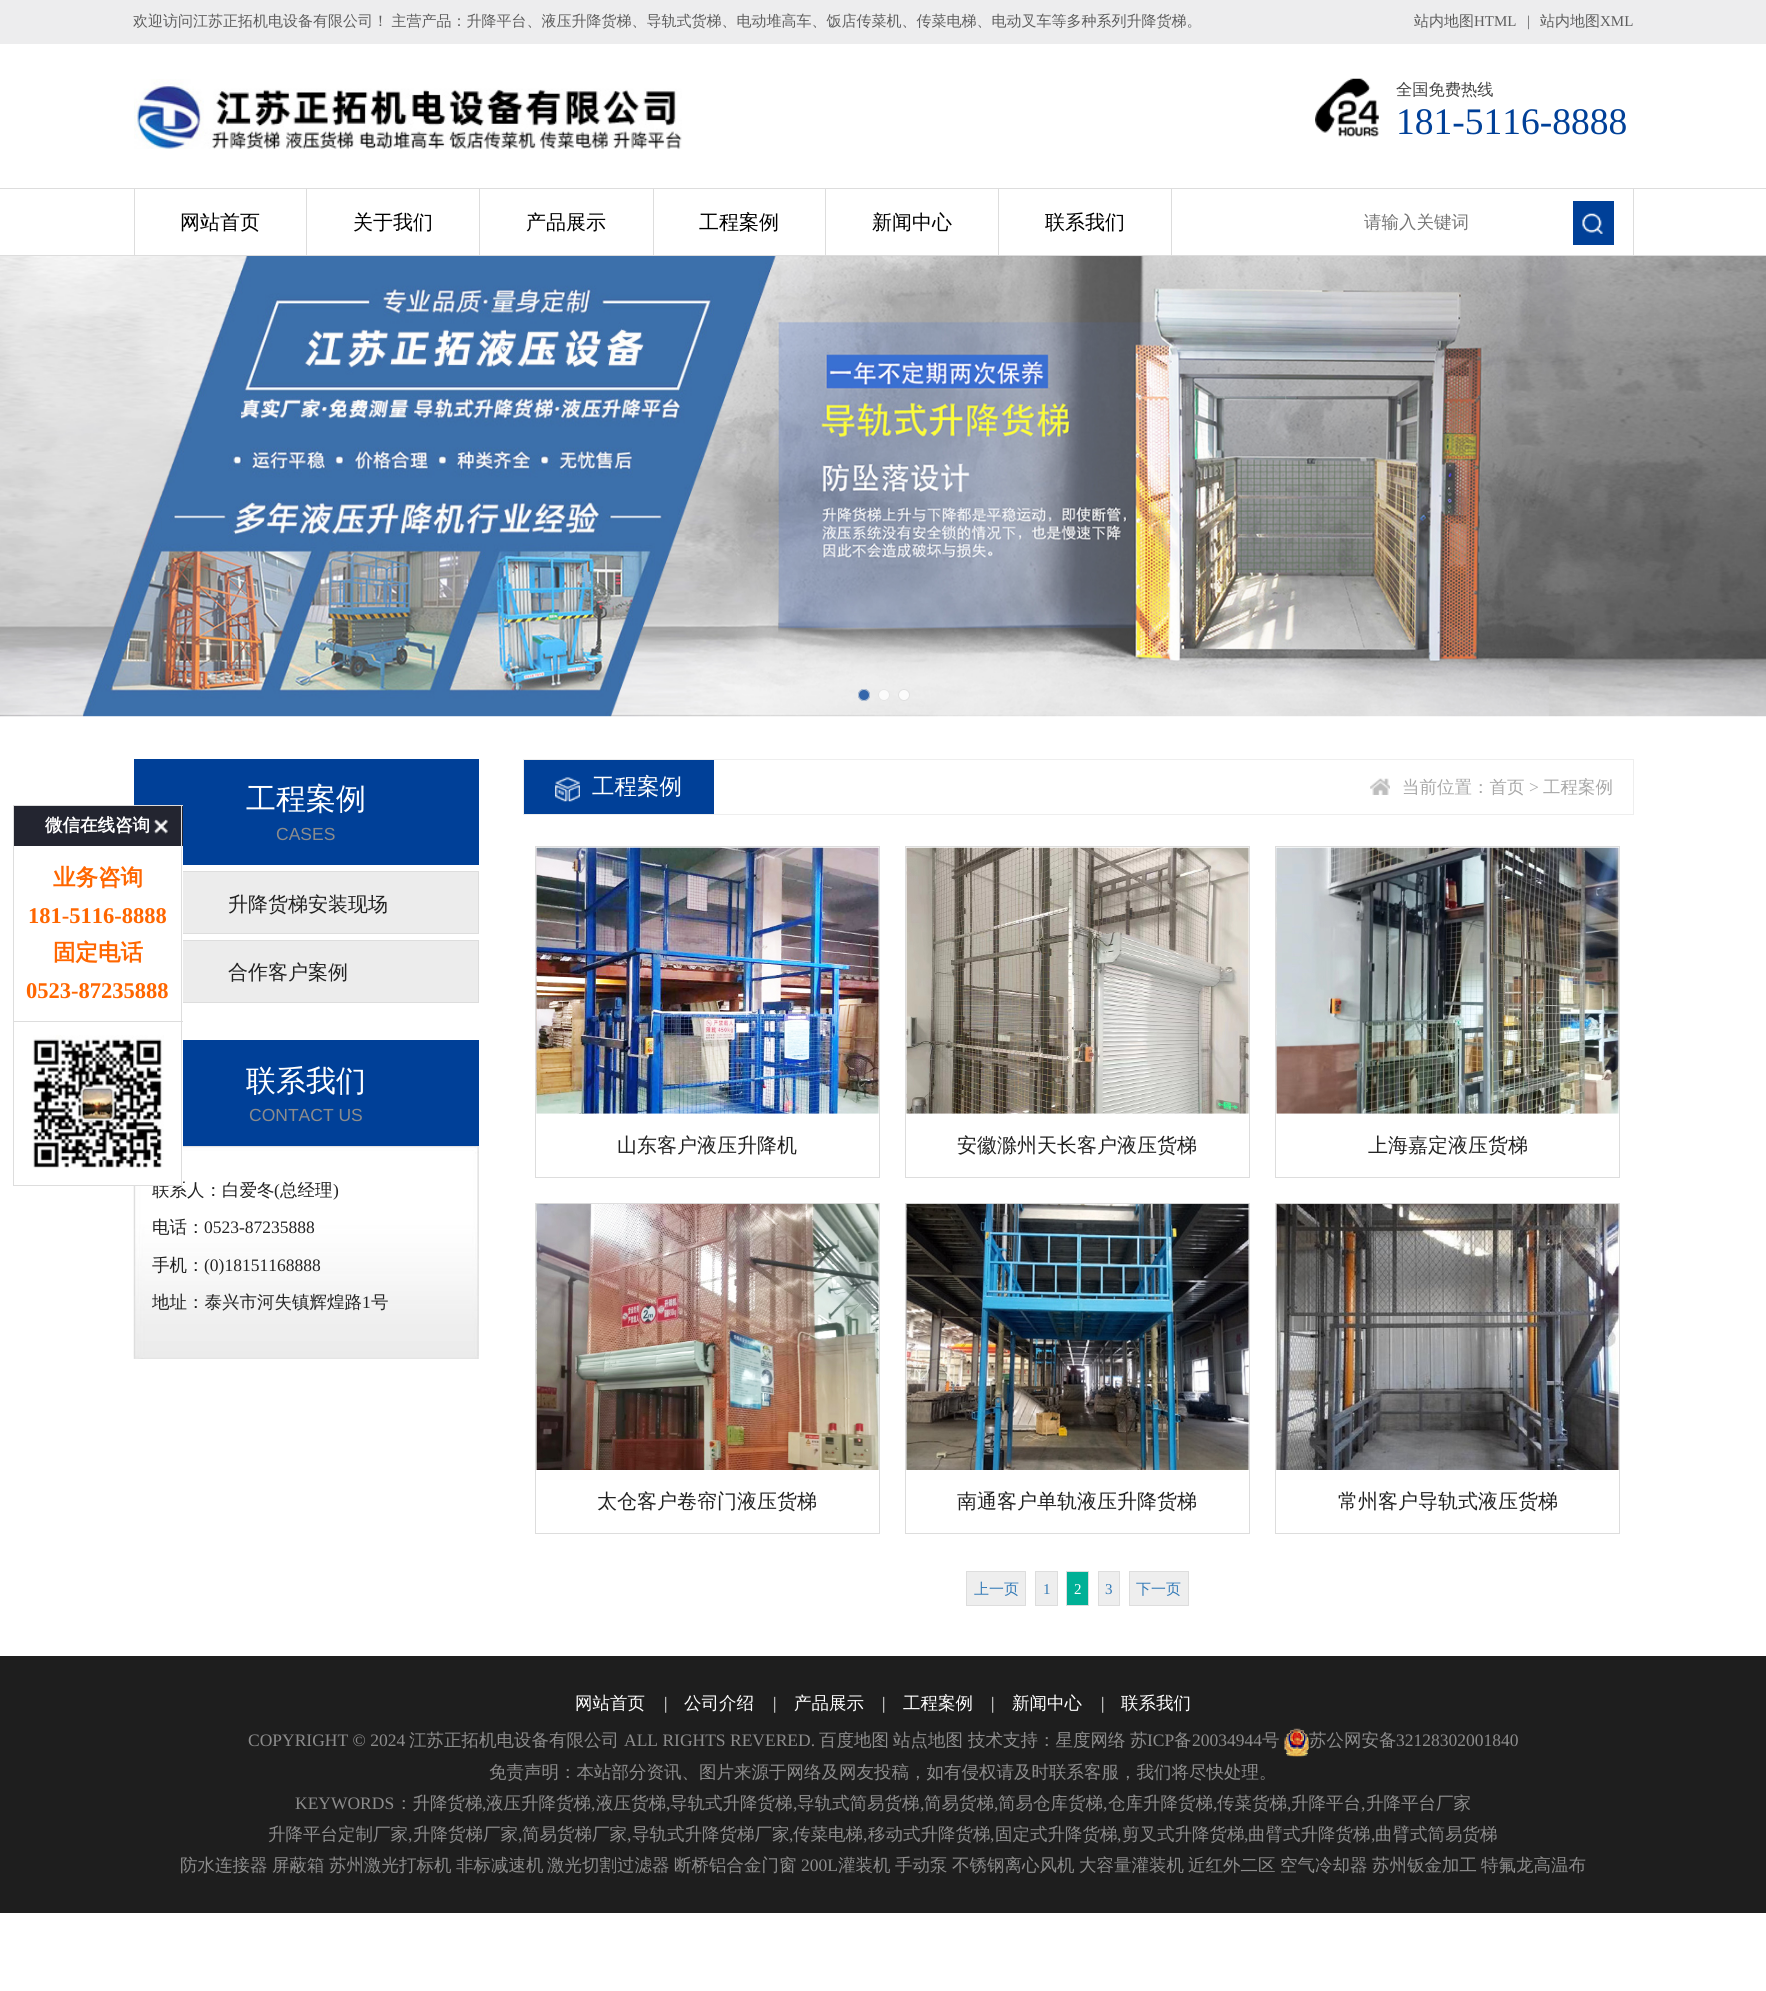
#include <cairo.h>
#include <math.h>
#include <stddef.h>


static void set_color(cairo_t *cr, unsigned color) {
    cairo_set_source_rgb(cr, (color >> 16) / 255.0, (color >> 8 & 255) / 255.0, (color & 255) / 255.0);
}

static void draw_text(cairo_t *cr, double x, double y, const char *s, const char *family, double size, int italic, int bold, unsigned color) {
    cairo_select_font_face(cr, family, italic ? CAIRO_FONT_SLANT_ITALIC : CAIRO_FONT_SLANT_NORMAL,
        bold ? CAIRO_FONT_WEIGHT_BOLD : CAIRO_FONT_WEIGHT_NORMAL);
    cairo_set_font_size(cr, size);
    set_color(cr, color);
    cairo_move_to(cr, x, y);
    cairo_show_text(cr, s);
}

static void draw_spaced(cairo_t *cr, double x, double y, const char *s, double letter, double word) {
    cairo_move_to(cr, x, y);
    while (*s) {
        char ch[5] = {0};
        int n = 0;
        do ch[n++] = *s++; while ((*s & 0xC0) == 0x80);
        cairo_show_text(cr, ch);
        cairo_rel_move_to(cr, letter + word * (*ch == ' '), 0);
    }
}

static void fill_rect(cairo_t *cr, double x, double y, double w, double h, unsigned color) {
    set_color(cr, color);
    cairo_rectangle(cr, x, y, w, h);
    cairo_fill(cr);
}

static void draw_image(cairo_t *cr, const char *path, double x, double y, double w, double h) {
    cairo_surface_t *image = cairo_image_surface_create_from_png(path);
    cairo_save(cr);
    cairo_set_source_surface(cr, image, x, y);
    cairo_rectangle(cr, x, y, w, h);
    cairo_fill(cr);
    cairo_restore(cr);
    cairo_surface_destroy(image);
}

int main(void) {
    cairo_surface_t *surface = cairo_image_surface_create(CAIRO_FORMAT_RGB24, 1766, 1991);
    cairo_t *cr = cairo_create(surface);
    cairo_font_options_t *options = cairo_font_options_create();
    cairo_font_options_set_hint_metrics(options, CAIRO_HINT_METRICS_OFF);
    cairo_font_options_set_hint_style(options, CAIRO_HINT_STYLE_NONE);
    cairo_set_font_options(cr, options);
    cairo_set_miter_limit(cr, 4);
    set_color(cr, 0xFFFFFF);
    cairo_paint(cr);
    fill_rect(cr, 0, 0, 1766, 44, 0xEDEDEE);
    cairo_select_font_face(cr, "WenQuanYi Zen Hei Medium", CAIRO_FONT_SLANT_NORMAL, CAIRO_FONT_WEIGHT_NORMAL);
    cairo_set_font_size(cr, 15);
    set_color(cr, 0x5E5E5E);
    draw_spaced(cr, 133, 26, "欢迎访问江苏正拓机电设备有限公司！ 主营产品：升降平台、液压升降货梯、导轨式货梯、电动堆高车、饭店传菜机、传菜电梯、电动叉车等多种系列升降货梯。", 0, -1);
    draw_text(cr, 1414, 26, "站内地图", "WenQuanYi Zen Hei Medium", 15, 0, 0, 0x5E5E5E);
    draw_text(cr, 1474, 26, "HTML", "Liberation Serif", 15, 0, 0, 0x5E5E5E);
    draw_text(cr, 1527, 26, "|", "Liberation Serif", 15, 0, 0, 0x5E5E5E);
    draw_text(cr, 1540, 26, "站内地图", "WenQuanYi Zen Hei Medium", 15, 0, 0, 0x5E5E5E);
    draw_text(cr, 1600, 26, "XML", "Liberation Serif", 15, 0, 0, 0x5E5E5E);
    draw_image(cr, "assets/img1.png", 134, 79, 548, 70);
    draw_image(cr, "assets/img2.png", 1315, 78, 64, 59);
    draw_text(cr, 1396, 95, "全国免费热线", "WenQuanYi Zen Hei Medium", 16.25, 0, 0, 0x434343);
    draw_text(cr, 1396, 134, "181-5116-8888", "Liberation Serif", 37.5, 0, 0, 0x004098);
    fill_rect(cr, 0, 188, 1766, 1, 0xDDDDDD);
    fill_rect(cr, 0, 255, 1766, 1, 0xDDDDDD);
    fill_rect(cr, 134, 189, 1, 66, 0xDDDDDD);
    fill_rect(cr, 306, 189, 1, 66, 0xDDDDDD);
    draw_text(cr, 180, 229, "网站首页", "WenQuanYi Zen Hei Medium", 20, 0, 0, 0x000000);
    fill_rect(cr, 479, 189, 1, 66, 0xDDDDDD);
    draw_text(cr, 353, 229, "关于我们", "WenQuanYi Zen Hei Medium", 20, 0, 0, 0x000000);
    fill_rect(cr, 653, 189, 1, 66, 0xDDDDDD);
    draw_text(cr, 526, 229, "产品展示", "WenQuanYi Zen Hei Medium", 20, 0, 0, 0x000000);
    fill_rect(cr, 825, 189, 1, 66, 0xDDDDDD);
    draw_text(cr, 699, 229, "工程案例", "WenQuanYi Zen Hei Medium", 20, 0, 0, 0x000000);
    fill_rect(cr, 998, 189, 1, 66, 0xDDDDDD);
    draw_text(cr, 872, 229, "新闻中心", "WenQuanYi Zen Hei Medium", 20, 0, 0, 0x000000);
    fill_rect(cr, 1171, 189, 1, 66, 0xDDDDDD);
    draw_text(cr, 1045, 229, "联系我们", "WenQuanYi Zen Hei Medium", 20, 0, 0, 0x000000);
    fill_rect(cr, 1633, 189, 1, 66, 0xDDDDDD);
    draw_text(cr, 1364, 228, "请输入关键词", "WenQuanYi Zen Hei Medium", 17.5, 0, 0, 0x757575);
    fill_rect(cr, 1573, 201, 41, 44, 0x004098);
    draw_image(cr, "assets/img3.png", 1582, 213, 21, 21);
    draw_image(cr, "assets/img4.png", 0, 256, 1766, 461);
    cairo_set_source_rgba(cr, 0, 0.251, 0.596, 0.78);
    cairo_arc(cr, 864, 695, 6, 0, 2 * M_PI);
    cairo_fill(cr);
    cairo_arc(cr, 864, 695, 5.5, 0, 2 * M_PI);
    cairo_set_source_rgba(cr, 0.867, 0.867, 0.867, 0.78);
    cairo_set_line_width(cr, 1);
    cairo_stroke(cr);
    cairo_set_source_rgba(cr, 1, 1, 1, 0.78);
    cairo_arc(cr, 884, 695, 6, 0, 2 * M_PI);
    cairo_fill(cr);
    cairo_arc(cr, 884, 695, 5.5, 0, 2 * M_PI);
    cairo_set_source_rgba(cr, 0.867, 0.867, 0.867, 0.78);
    cairo_stroke(cr);
    set_color(cr, 0xFBFBFB);
    cairo_arc(cr, 904, 695, 5.5, 0, 2 * M_PI);
    cairo_fill_preserve(cr);
    set_color(cr, 0xE0E0E0);
    cairo_stroke(cr);
    fill_rect(cr, 134, 759, 345, 106, 0x004098);
    fill_rect(cr, 183, 872, 295, 61, 0xECECEC);
    cairo_rectangle(cr, 134.5, 871.5, 344, 62);
    set_color(cr, 0xDDDDDD);
    cairo_stroke(cr);
    fill_rect(cr, 183, 941, 295, 61, 0xECECEC);
    cairo_rectangle(cr, 134.5, 940.5, 344, 62);
    set_color(cr, 0xDDDDDD);
    cairo_stroke(cr);
    draw_image(cr, "assets/img7.png", 133, 1146, 346, 213);
    draw_text(cr, 152, 1196, "联系人：白爱冬", "WenQuanYi Zen Hei Medium", 17.5, 0, 0, 0x222222);
    fill_rect(cr, 133, 846, 50, 339, 0xFFFFFF);
    fill_rect(cr, 14, 806, 169, 40, 0x232530);
    draw_image(cr, "assets/img5.png", 153, 819, 16, 15);
    fill_rect(cr, 13, 805, 170, 1, 0xDDDDDD);
    fill_rect(cr, 181, 805, 1, 381, 0xDDDDDD);
    fill_rect(cr, 13, 805, 1, 41, 0xDDDDDD);
    draw_text(cr, 45, 831, "微信在线咨询", "WenQuanYi Zen Hei", 17.5, 0, 1, 0xFFFFFF);
    fill_rect(cr, 13, 1021, 170, 1, 0xDDDDDD);
    fill_rect(cr, 13, 846, 1, 177, 0xDDDDDD);
    draw_text(cr, 53, 885, "业务咨询", "WenQuanYi Zen Hei", 22.5, 0, 1, 0xFF6600);
    draw_text(cr, 28, 923, "181-5116-8888", "Liberation Serif", 22.5, 0, 1, 0xFF6600);
    draw_text(cr, 53, 960, "固定电话", "WenQuanYi Zen Hei", 22.5, 0, 1, 0xFF6600);
    draw_text(cr, 26, 998, "0523-87235888", "Liberation Serif", 22.5, 0, 1, 0xFF6600);
    fill_rect(cr, 13, 1185, 170, 1, 0xDDDDDD);
    fill_rect(cr, 13, 1023, 1, 163, 0xDDDDDD);
    draw_image(cr, "assets/img6.png", 33, 1035, 131, 133);
    draw_text(cr, 246, 809, "工程案例", "WenQuanYi Zen Hei Medium", 30, 0, 0, 0xFFFFFF);
    draw_text(cr, 276, 840, "CASES", "Liberation Sans", 17.5, 0, 0, 0x8C8C8C);
    draw_text(cr, 228, 911, "升降货梯安装现场", "WenQuanYi Zen Hei Medium", 20, 0, 0, 0x222222);
    draw_text(cr, 228, 979, "合作客户案例", "WenQuanYi Zen Hei Medium", 20, 0, 0, 0x222222);
    fill_rect(cr, 183, 1040, 296, 106, 0x004098);
    draw_text(cr, 246, 1091, "联系我们", "WenQuanYi Zen Hei Medium", 30, 0, 0, 0xFFFFFF);
    draw_text(cr, 249, 1121, "CONTACT US", "Liberation Sans", 17.5, 0, 0, 0x8C8C8C);
    draw_text(cr, 274, 1196, "(", "Liberation Serif", 17.5, 0, 0, 0x222222);
    draw_text(cr, 280, 1196, "总经理", "WenQuanYi Zen Hei Medium", 17.5, 0, 0, 0x222222);
    draw_text(cr, 333, 1196, ")", "Liberation Serif", 17.5, 0, 0, 0x222222);
    draw_text(cr, 152, 1233, "电话：", "WenQuanYi Zen Hei Medium", 17.5, 0, 0, 0x222222);
    draw_text(cr, 204, 1233, "0523-87235888", "Liberation Serif", 17.5, 0, 0, 0x222222);
    draw_text(cr, 152, 1271, "手机：", "WenQuanYi Zen Hei Medium", 17.5, 0, 0, 0x222222);
    draw_text(cr, 204, 1271, "(0)18151168888", "Liberation Serif", 17.5, 0, 0, 0x222222);
    draw_text(cr, 152, 1308, "地址：泰兴市河失镇辉煌路", "WenQuanYi Zen Hei Medium", 17.5, 0, 0, 0x222222);
    draw_text(cr, 362, 1308, "1", "Liberation Serif", 17.5, 0, 0, 0x222222);
    draw_text(cr, 371, 1308, "号", "WenQuanYi Zen Hei Medium", 17.5, 0, 0, 0x222222);
    cairo_rectangle(cr, 523.5, 759.5, 1110, 55);
    set_color(cr, 0xEEEEEE);
    cairo_stroke(cr);
    fill_rect(cr, 524, 760, 190, 54, 0x004098);
    draw_image(cr, "assets/img8.png", 555, 777, 25, 25);
    draw_text(cr, 592, 794, "工程案例", "WenQuanYi Zen Hei Medium", 22.5, 0, 0, 0xFFFFFF);
    draw_image(cr, "assets/img9.png", 1370, 778, 20, 17);
    draw_text(cr, 1402, 793, "当前位置：首页", "WenQuanYi Zen Hei Medium", 17.5, 0, 0, 0xA8A8A8);
    draw_text(cr, 1529, 793, ">", "Liberation Serif", 17.5, 0, 0, 0xA8A8A8);
    draw_text(cr, 1543, 793, "工程案例", "WenQuanYi Zen Hei Medium", 17.5, 0, 0, 0xA8A8A8);
    cairo_rectangle(cr, 535.5, 846.5, 344, 331);
    set_color(cr, 0xDDDDDD);
    cairo_stroke(cr);
    draw_image(cr, "assets/img10.png", 536, 847, 343, 267);
    draw_text(cr, 617, 1152, "山东客户液压升降机", "WenQuanYi Zen Hei Medium", 20, 0, 0, 0x222222);
    cairo_rectangle(cr, 905.5, 846.5, 344, 331);
    set_color(cr, 0xDDDDDD);
    cairo_stroke(cr);
    draw_image(cr, "assets/img11.png", 906, 847, 343, 267);
    draw_text(cr, 957, 1152, "安徽滁州天长客户液压货梯", "WenQuanYi Zen Hei Medium", 20, 0, 0, 0x222222);
    cairo_rectangle(cr, 1275.5, 846.5, 344, 331);
    set_color(cr, 0xDDDDDD);
    cairo_stroke(cr);
    draw_image(cr, "assets/img12.png", 1276, 847, 343, 267);
    draw_text(cr, 1368, 1152, "上海嘉定液压货梯", "WenQuanYi Zen Hei Medium", 20, 0, 0, 0x222222);
    cairo_rectangle(cr, 535.5, 1203.5, 344, 330);
    set_color(cr, 0xDDDDDD);
    cairo_stroke(cr);
    draw_image(cr, "assets/img13.png", 536, 1203, 343, 267);
    draw_text(cr, 597, 1508, "太仓客户卷帘门液压货梯", "WenQuanYi Zen Hei Medium", 20, 0, 0, 0x222222);
    cairo_rectangle(cr, 905.5, 1203.5, 344, 330);
    set_color(cr, 0xDDDDDD);
    cairo_stroke(cr);
    draw_image(cr, "assets/img14.png", 906, 1203, 343, 267);
    draw_text(cr, 957, 1508, "南通客户单轨液压升降货梯", "WenQuanYi Zen Hei Medium", 20, 0, 0, 0x222222);
    cairo_rectangle(cr, 1275.5, 1203.5, 344, 330);
    set_color(cr, 0xDDDDDD);
    cairo_stroke(cr);
    draw_image(cr, "assets/img15.png", 1276, 1203, 343, 267);
    draw_text(cr, 1338, 1508, "常州客户导轨式液压货梯", "WenQuanYi Zen Hei Medium", 20, 0, 0, 0x222222);
    set_color(cr, 0xEEEEEE);
    cairo_rectangle(cr, 966.5, 1571.5, 59, 34);
    cairo_fill_preserve(cr);
    set_color(cr, 0xDDDDDD);
    cairo_stroke(cr);
    draw_text(cr, 974, 1594, "上一页", "WenQuanYi Zen Hei Medium", 15, 0, 0, 0x337AB7);
    set_color(cr, 0xEEEEEE);
    cairo_rectangle(cr, 1035.5, 1571.5, 22, 34);
    cairo_fill_preserve(cr);
    set_color(cr, 0xDDDDDD);
    cairo_stroke(cr);
    draw_text(cr, 1043, 1594, "1", "Liberation Serif", 15, 0, 0, 0x337AB7);
    set_color(cr, 0x00B096);
    cairo_rectangle(cr, 1066.5, 1571.5, 22, 34);
    cairo_fill_preserve(cr);
    set_color(cr, 0xDDDDDD);
    cairo_stroke(cr);
    draw_text(cr, 1074, 1594, "2", "Liberation Serif", 15, 0, 0, 0xFFFFFF);
    set_color(cr, 0xEEEEEE);
    cairo_rectangle(cr, 1098.5, 1571.5, 21, 34);
    cairo_fill_preserve(cr);
    set_color(cr, 0xDDDDDD);
    cairo_stroke(cr);
    draw_text(cr, 1105, 1594, "3", "Liberation Serif", 15, 0, 0, 0x337AB7);
    set_color(cr, 0xEEEEEE);
    cairo_rectangle(cr, 1129.5, 1571.5, 59, 34);
    cairo_fill_preserve(cr);
    set_color(cr, 0xDDDDDD);
    cairo_stroke(cr);
    draw_text(cr, 1136, 1594, "下一页", "WenQuanYi Zen Hei Medium", 15, 0, 0, 0x337AB7);
    fill_rect(cr, 0, 1656, 1766, 257, 0x1E1E1E);
    draw_text(cr, 575, 1709, "网站首页", "WenQuanYi Zen Hei Medium", 17.5, 0, 0, 0xFFFFFF);
    draw_text(cr, 664, 1709, "|", "Liberation Serif", 17.5, 0, 0, 0xFFFFFF);
    draw_text(cr, 684, 1709, "公司介绍", "WenQuanYi Zen Hei Medium", 17.5, 0, 0, 0xFFFFFF);
    draw_text(cr, 773, 1709, "|", "Liberation Serif", 17.5, 0, 0, 0xFFFFFF);
    draw_text(cr, 794, 1709, "产品展示", "WenQuanYi Zen Hei Medium", 17.5, 0, 0, 0xFFFFFF);
    draw_text(cr, 882, 1709, "|", "Liberation Serif", 17.5, 0, 0, 0xFFFFFF);
    draw_text(cr, 903, 1709, "工程案例", "WenQuanYi Zen Hei Medium", 17.5, 0, 0, 0xFFFFFF);
    draw_text(cr, 991, 1709, "|", "Liberation Serif", 17.5, 0, 0, 0xFFFFFF);
    draw_text(cr, 1012, 1709, "新闻中心", "WenQuanYi Zen Hei Medium", 17.5, 0, 0, 0xFFFFFF);
    draw_text(cr, 1101, 1709, "|", "Liberation Serif", 17.5, 0, 0, 0xFFFFFF);
    draw_text(cr, 1121, 1709, "联系我们", "WenQuanYi Zen Hei Medium", 17.5, 0, 0, 0xFFFFFF);
    draw_text(cr, 248, 1746, "COPYRIGHT © 2024", "Liberation Serif", 17.5, 0, 0, 0x8C8C8C);
    draw_text(cr, 409, 1746, "江苏正拓机电设备有限公司", "WenQuanYi Zen Hei Medium", 17.5, 0, 0, 0x8C8C8C);
    draw_text(cr, 624, 1746, "ALL RIGHTS REVERED.", "Liberation Serif", 17.5, 0, 0, 0x8C8C8C);
    draw_text(cr, 819, 1746, "百度地图", "WenQuanYi Zen Hei Medium", 17.5, 0, 0, 0x8C8C8C);
    draw_text(cr, 893, 1746, "站点地图", "WenQuanYi Zen Hei Medium", 17.5, 0, 0, 0x8C8C8C);
    draw_text(cr, 968, 1746, "技术支持：星度网络", "WenQuanYi Zen Hei Medium", 17.5, 0, 0, 0x8C8C8C);
    draw_text(cr, 1130, 1746, "苏", "WenQuanYi Zen Hei Medium", 17.5, 0, 0, 0x8C8C8C);
    draw_text(cr, 1147, 1746, "ICP", "Liberation Serif", 17.5, 0, 0, 0x8C8C8C);
    draw_text(cr, 1174, 1746, "备", "WenQuanYi Zen Hei Medium", 17.5, 0, 0, 0x8C8C8C);
    draw_text(cr, 1192, 1746, "20034944", "Liberation Serif", 17.5, 0, 0, 0x8C8C8C);
    draw_text(cr, 1262, 1746, "号", "WenQuanYi Zen Hei Medium", 17.5, 0, 0, 0x8C8C8C);
    draw_image(cr, "assets/img16.png", 1284, 1728, 25, 29);
    draw_text(cr, 1309, 1746, "苏公网安备", "WenQuanYi Zen Hei Medium", 17.5, 0, 0, 0x8C8C8C);
    draw_text(cr, 1396, 1746, "32128302001840", "Liberation Serif", 17.5, 0, 0, 0x8C8C8C);
    draw_text(cr, 489, 1778, "免责声明：本站部分资讯、图片来源于网络及网友投稿，如有侵权请及时联系客服，我们将尽快处理。", "WenQuanYi Zen Hei Medium", 17.5, 0, 0, 0x8C8C8C);
    draw_text(cr, 295, 1809, "KEYWORDS", "Liberation Serif", 17.5, 0, 0, 0x8C8C8C);
    draw_text(cr, 395, 1809, "：升降货梯", "WenQuanYi Zen Hei Medium", 17.5, 0, 0, 0x8C8C8C);
    draw_text(cr, 482, 1809, ",", "Liberation Serif", 17.5, 0, 0, 0x8C8C8C);
    draw_text(cr, 486, 1809, "液压升降货梯", "WenQuanYi Zen Hei Medium", 17.5, 0, 0, 0x8C8C8C);
    draw_text(cr, 591, 1809, ",", "Liberation Serif", 17.5, 0, 0, 0x8C8C8C);
    draw_text(cr, 596, 1809, "液压货梯", "WenQuanYi Zen Hei Medium", 17.5, 0, 0, 0x8C8C8C);
    draw_text(cr, 666, 1809, ",", "Liberation Serif", 17.5, 0, 0, 0x8C8C8C);
    draw_text(cr, 670, 1809, "导轨式升降货梯", "WenQuanYi Zen Hei Medium", 17.5, 0, 0, 0x8C8C8C);
    draw_text(cr, 793, 1809, ",", "Liberation Serif", 17.5, 0, 0, 0x8C8C8C);
    draw_text(cr, 797, 1809, "导轨式简易货梯", "WenQuanYi Zen Hei Medium", 17.5, 0, 0, 0x8C8C8C);
    draw_text(cr, 920, 1809, ",", "Liberation Serif", 17.5, 0, 0, 0x8C8C8C);
    draw_text(cr, 924, 1809, "简易货梯", "WenQuanYi Zen Hei Medium", 17.5, 0, 0, 0x8C8C8C);
    draw_text(cr, 994, 1809, ",", "Liberation Serif", 17.5, 0, 0, 0x8C8C8C);
    draw_text(cr, 998, 1809, "简易仓库货梯", "WenQuanYi Zen Hei Medium", 17.5, 0, 0, 0x8C8C8C);
    draw_text(cr, 1103, 1809, ",", "Liberation Serif", 17.5, 0, 0, 0x8C8C8C);
    draw_text(cr, 1108, 1809, "仓库升降货梯", "WenQuanYi Zen Hei Medium", 17.5, 0, 0, 0x8C8C8C);
    draw_text(cr, 1213, 1809, ",", "Liberation Serif", 17.5, 0, 0, 0x8C8C8C);
    draw_text(cr, 1217, 1809, "传菜货梯", "WenQuanYi Zen Hei Medium", 17.5, 0, 0, 0x8C8C8C);
    draw_text(cr, 1287, 1809, ",", "Liberation Serif", 17.5, 0, 0, 0x8C8C8C);
    draw_text(cr, 1291, 1809, "升降平台", "WenQuanYi Zen Hei Medium", 17.5, 0, 0, 0x8C8C8C);
    draw_text(cr, 1361, 1809, ",", "Liberation Serif", 17.5, 0, 0, 0x8C8C8C);
    draw_text(cr, 1366, 1809, "升降平台厂家", "WenQuanYi Zen Hei Medium", 17.5, 0, 0, 0x8C8C8C);
    draw_text(cr, 268, 1840, "升降平台定制厂家", "WenQuanYi Zen Hei Medium", 17.5, 0, 0, 0x8C8C8C);
    draw_text(cr, 408, 1840, ",", "Liberation Serif", 17.5, 0, 0, 0x8C8C8C);
    draw_text(cr, 413, 1840, "升降货梯厂家", "WenQuanYi Zen Hei Medium", 17.5, 0, 0, 0x8C8C8C);
    draw_text(cr, 518, 1840, ",", "Liberation Serif", 17.5, 0, 0, 0x8C8C8C);
    draw_text(cr, 522, 1840, "简易货梯厂家", "WenQuanYi Zen Hei Medium", 17.5, 0, 0, 0x8C8C8C);
    draw_text(cr, 627, 1840, ",", "Liberation Serif", 17.5, 0, 0, 0x8C8C8C);
    draw_text(cr, 632, 1840, "导轨式升降货梯厂家", "WenQuanYi Zen Hei Medium", 17.5, 0, 0, 0x8C8C8C);
    draw_text(cr, 789, 1840, ",", "Liberation Serif", 17.5, 0, 0, 0x8C8C8C);
    draw_text(cr, 793, 1840, "传菜电梯", "WenQuanYi Zen Hei Medium", 17.5, 0, 0, 0x8C8C8C);
    draw_text(cr, 863, 1840, ",", "Liberation Serif", 17.5, 0, 0, 0x8C8C8C);
    draw_text(cr, 868, 1840, "移动式升降货梯", "WenQuanYi Zen Hei Medium", 17.5, 0, 0, 0x8C8C8C);
    draw_text(cr, 990, 1840, ",", "Liberation Serif", 17.5, 0, 0, 0x8C8C8C);
    draw_text(cr, 995, 1840, "固定式升降货梯", "WenQuanYi Zen Hei Medium", 17.5, 0, 0, 0x8C8C8C);
    draw_text(cr, 1117, 1840, ",", "Liberation Serif", 17.5, 0, 0, 0x8C8C8C);
    draw_text(cr, 1122, 1840, "剪叉式升降货梯", "WenQuanYi Zen Hei Medium", 17.5, 0, 0, 0x8C8C8C);
    draw_text(cr, 1244, 1840, ",", "Liberation Serif", 17.5, 0, 0, 0x8C8C8C);
    draw_text(cr, 1248, 1840, "曲臂式升降货梯", "WenQuanYi Zen Hei Medium", 17.5, 0, 0, 0x8C8C8C);
    draw_text(cr, 1371, 1840, ",", "Liberation Serif", 17.5, 0, 0, 0x8C8C8C);
    draw_text(cr, 1375, 1840, "曲臂式简易货梯", "WenQuanYi Zen Hei Medium", 17.5, 0, 0, 0x8C8C8C);
    draw_text(cr, 180, 1871, "防水连接器", "WenQuanYi Zen Hei Medium", 17.5, 0, 0, 0x8C8C8C);
    draw_text(cr, 272, 1871, "屏蔽箱", "WenQuanYi Zen Hei Medium", 17.5, 0, 0, 0x8C8C8C);
    draw_text(cr, 329, 1871, "苏州激光打标机", "WenQuanYi Zen Hei Medium", 17.5, 0, 0, 0x8C8C8C);
    draw_text(cr, 456, 1871, "非标减速机", "WenQuanYi Zen Hei Medium", 17.5, 0, 0, 0x8C8C8C);
    draw_text(cr, 547, 1871, "激光切割过滤器", "WenQuanYi Zen Hei Medium", 17.5, 0, 0, 0x8C8C8C);
    draw_text(cr, 674, 1871, "断桥铝合金门窗", "WenQuanYi Zen Hei Medium", 17.5, 0, 0, 0x8C8C8C);
    draw_text(cr, 801, 1871, "200L", "Liberation Serif", 17.5, 0, 0, 0x8C8C8C);
    draw_text(cr, 838, 1871, "灌装机", "WenQuanYi Zen Hei Medium", 17.5, 0, 0, 0x8C8C8C);
    draw_text(cr, 895, 1871, "手动泵", "WenQuanYi Zen Hei Medium", 17.5, 0, 0, 0x8C8C8C);
    draw_text(cr, 952, 1871, "不锈钢离心风机", "WenQuanYi Zen Hei Medium", 17.5, 0, 0, 0x8C8C8C);
    draw_text(cr, 1079, 1871, "大容量灌装机", "WenQuanYi Zen Hei Medium", 17.5, 0, 0, 0x8C8C8C);
    draw_text(cr, 1188, 1871, "近红外二区", "WenQuanYi Zen Hei Medium", 17.5, 0, 0, 0x8C8C8C);
    draw_text(cr, 1280, 1871, "空气冷却器", "WenQuanYi Zen Hei Medium", 17.5, 0, 0, 0x8C8C8C);
    draw_text(cr, 1372, 1871, "苏州钣金加工", "WenQuanYi Zen Hei Medium", 17.5, 0, 0, 0x8C8C8C);
    draw_text(cr, 1481, 1871, "特氟龙高温布", "WenQuanYi Zen Hei Medium", 17.5, 0, 0, 0x8C8C8C);
    cairo_surface_write_to_png(surface, "output.png");
    cairo_font_options_destroy(options);
    cairo_destroy(cr);
    cairo_surface_destroy(surface);
    return 0;
}
